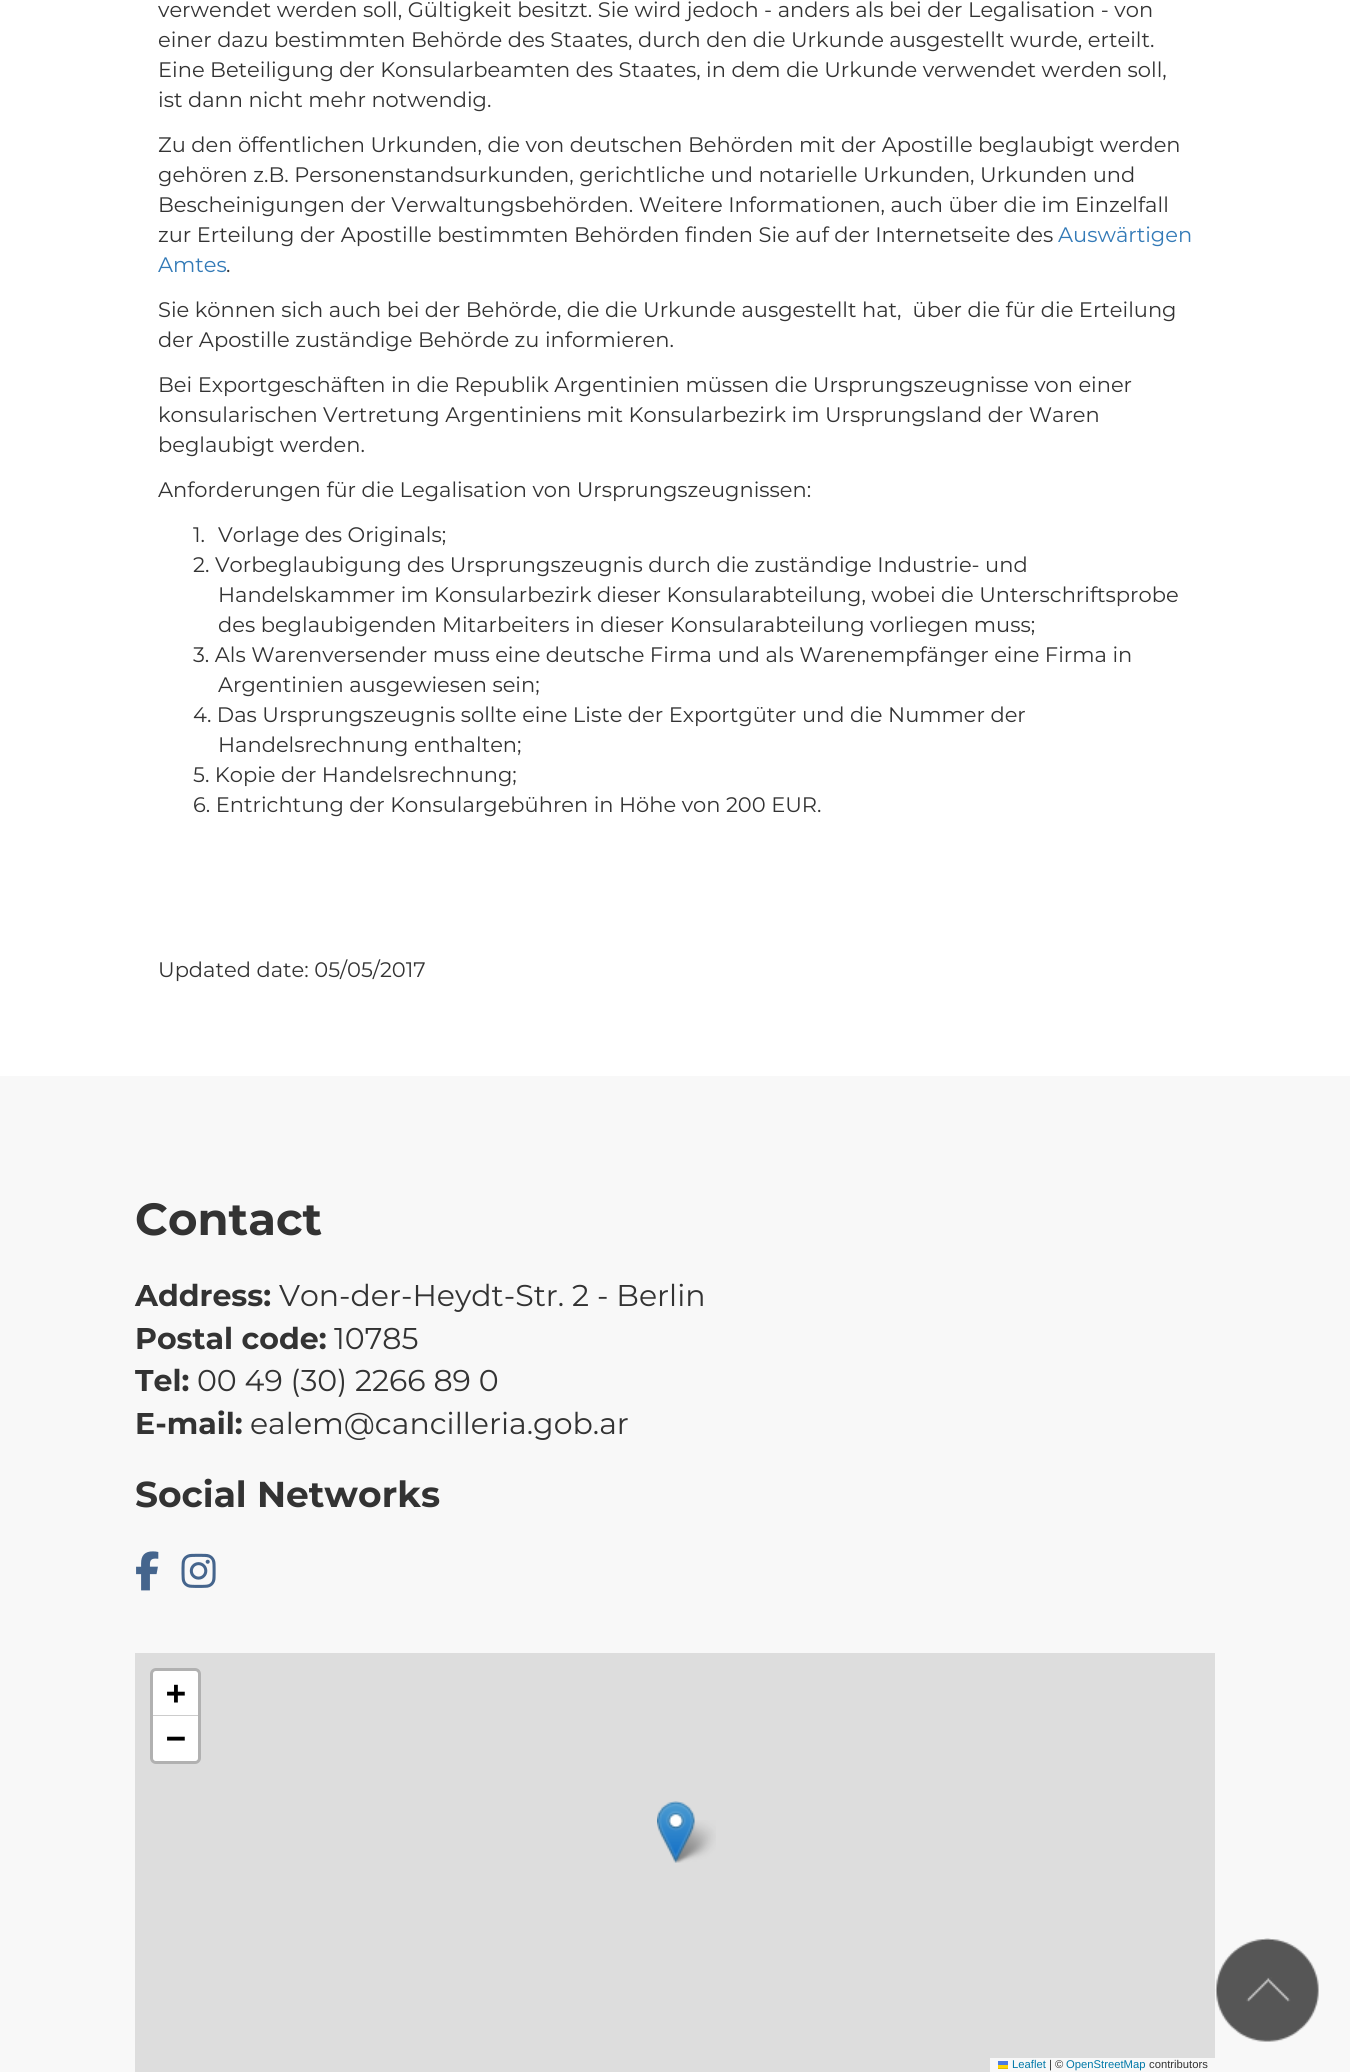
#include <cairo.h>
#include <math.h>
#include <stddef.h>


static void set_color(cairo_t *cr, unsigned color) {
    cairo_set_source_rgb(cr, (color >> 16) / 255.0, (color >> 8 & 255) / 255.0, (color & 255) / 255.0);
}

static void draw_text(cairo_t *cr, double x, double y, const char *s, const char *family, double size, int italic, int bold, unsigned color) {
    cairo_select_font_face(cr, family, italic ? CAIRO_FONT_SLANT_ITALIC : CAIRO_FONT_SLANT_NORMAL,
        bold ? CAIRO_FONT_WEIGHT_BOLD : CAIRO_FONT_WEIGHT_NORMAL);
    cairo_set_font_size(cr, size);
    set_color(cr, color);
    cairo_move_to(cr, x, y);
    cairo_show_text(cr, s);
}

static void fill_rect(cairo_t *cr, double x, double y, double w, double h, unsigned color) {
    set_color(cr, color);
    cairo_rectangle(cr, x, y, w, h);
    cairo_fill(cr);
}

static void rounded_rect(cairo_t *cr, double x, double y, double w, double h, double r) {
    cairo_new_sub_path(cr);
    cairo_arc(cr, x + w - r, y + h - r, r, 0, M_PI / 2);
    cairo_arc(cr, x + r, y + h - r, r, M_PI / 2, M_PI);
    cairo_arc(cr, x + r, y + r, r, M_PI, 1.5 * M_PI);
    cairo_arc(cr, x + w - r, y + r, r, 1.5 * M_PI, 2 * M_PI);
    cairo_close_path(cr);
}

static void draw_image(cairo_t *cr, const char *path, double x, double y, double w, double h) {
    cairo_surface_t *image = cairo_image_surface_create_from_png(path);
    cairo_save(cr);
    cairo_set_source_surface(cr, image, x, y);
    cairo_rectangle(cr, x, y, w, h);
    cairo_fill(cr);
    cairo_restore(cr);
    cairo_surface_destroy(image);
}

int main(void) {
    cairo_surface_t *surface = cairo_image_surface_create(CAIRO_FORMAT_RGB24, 1350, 2072);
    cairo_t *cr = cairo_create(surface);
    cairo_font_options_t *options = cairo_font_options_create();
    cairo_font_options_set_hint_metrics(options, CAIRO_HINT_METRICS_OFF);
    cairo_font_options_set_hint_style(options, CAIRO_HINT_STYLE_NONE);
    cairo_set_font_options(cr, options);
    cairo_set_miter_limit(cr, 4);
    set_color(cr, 0xFFFFFF);
    cairo_paint(cr);
    draw_text(cr, 158, 17, "verwendet werden soll, Gültigkeit besitzt. Sie wird jedoch - anders als bei der Legalisation - von", "Montserrat", 21, 0, 0, 0x333333);
    draw_text(cr, 158, 47, "einer dazu bestimmten Behörde des Staates, durch den die Urkunde ausgestellt wurde, erteilt.", "Montserrat", 21, 0, 0, 0x333333);
    draw_text(cr, 158, 77, "Eine Beteiligung der Konsularbeamten des Staates, in dem die Urkunde verwendet werden soll,", "Montserrat", 21, 0, 0, 0x333333);
    draw_text(cr, 158, 107, "ist dann nicht mehr notwendig.", "Montserrat", 21, 0, 0, 0x333333);
    draw_text(cr, 158, 152, "Zu den öffentlichen Urkunden, die von deutschen Behörden mit der Apostille beglaubigt werden", "Montserrat", 21, 0, 0, 0x333333);
    draw_text(cr, 158, 182, "gehören z.B. Personenstandsurkunden, gerichtliche und notarielle Urkunden, Urkunden und", "Montserrat", 21, 0, 0, 0x333333);
    draw_text(cr, 158, 212, "Bescheinigungen der Verwaltungsbehörden. Weitere Informationen, auch über die im Einzelfall", "Montserrat", 21, 0, 0, 0x333333);
    draw_text(cr, 158, 242, "zur Erteilung der Apostille bestimmten Behörden finden Sie auf der Internetseite des", "Montserrat", 21, 0, 0, 0x333333);
    draw_text(cr, 1058, 242, "Auswärtigen", "Montserrat", 21, 0, 0, 0x337AB7);
    draw_text(cr, 158, 272, "Amtes", "Montserrat", 21, 0, 0, 0x337AB7);
    draw_text(cr, 226, 272, ".", "Montserrat", 21, 0, 0, 0x333333);
    draw_text(cr, 158, 317, "Sie können sich auch bei der Behörde, die die Urkunde ausgestellt hat,  über die für die Erteilung", "Montserrat", 21, 0, 0, 0x333333);
    draw_text(cr, 158, 347, "der Apostille zuständige Behörde zu informieren.", "Montserrat", 21, 0, 0, 0x333333);
    draw_text(cr, 158, 392, "Bei Exportgeschäften in die Republik Argentinien müssen die Ursprungszeugnisse von einer", "Montserrat", 21, 0, 0, 0x333333);
    draw_text(cr, 158, 422, "konsularischen Vertretung Argentiniens mit Konsularbezirk im Ursprungsland der Waren", "Montserrat", 21, 0, 0, 0x333333);
    draw_text(cr, 158, 452, "beglaubigt werden.", "Montserrat", 21, 0, 0, 0x333333);
    draw_text(cr, 158, 497, "Anforderungen für die Legalisation von Ursprungszeugnissen:", "Montserrat", 21, 0, 0, 0x333333);
    draw_text(cr, 193, 542, "1.", "Montserrat", 21, 0, 0, 0x333333);
    draw_text(cr, 218, 542, "Vorlage des Originals;", "Montserrat", 21, 0, 0, 0x333333);
    draw_text(cr, 193, 572, "2. Vorbeglaubigung des Ursprungszeugnis durch die zuständige Industrie- und", "Montserrat", 21, 0, 0, 0x333333);
    draw_text(cr, 218, 602, "Handelskammer im Konsularbezirk dieser Konsularabteilung, wobei die Unterschriftsprobe", "Montserrat", 21, 0, 0, 0x333333);
    draw_text(cr, 218, 632, "des beglaubigenden Mitarbeiters in dieser Konsularabteilung vorliegen muss;", "Montserrat", 21, 0, 0, 0x333333);
    draw_text(cr, 193, 662, "3. Als Warenversender muss eine deutsche Firma und als Warenempfänger eine Firma in", "Montserrat", 21, 0, 0, 0x333333);
    draw_text(cr, 218, 692, "Argentinien ausgewiesen sein;", "Montserrat", 21, 0, 0, 0x333333);
    draw_text(cr, 193, 722, "4. Das Ursprungszeugnis sollte eine Liste der Exportgüter und die Nummer der", "Montserrat", 21, 0, 0, 0x333333);
    draw_text(cr, 218, 752, "Handelsrechnung enthalten;", "Montserrat", 21, 0, 0, 0x333333);
    draw_text(cr, 193, 782, "5. Kopie der Handelsrechnung;", "Montserrat", 21, 0, 0, 0x333333);
    draw_text(cr, 193, 812, "6. Entrichtung der Konsulargebühren in Höhe von 200 EUR.", "Montserrat", 21, 0, 0, 0x333333);
    draw_text(cr, 158, 977, "Updated date: 05/05/2017", "Montserrat", 21, 0, 0, 0x333333);
    fill_rect(cr, 0, 1076, 1350, 996, 0xF8F8F8);
    draw_text(cr, 135, 1235, "Contact", "Montserrat", 45, 0, 1, 0x333333);
    draw_text(cr, 135, 1306, "Address:", "Montserrat", 30, 0, 1, 0x333333);
    draw_text(cr, 279, 1306, "Von-der-Heydt-Str. 2 - Berlin", "Montserrat", 30, 0, 0, 0x333333);
    draw_text(cr, 135, 1349, "Postal code:", "Montserrat", 30, 0, 1, 0x333333);
    draw_text(cr, 334, 1349, "10785", "Montserrat", 30, 0, 0, 0x333333);
    draw_text(cr, 135, 1391, "Tel:", "Montserrat", 30, 0, 1, 0x333333);
    draw_text(cr, 197, 1391, "00 49 (30) 2266 89 0", "Montserrat", 30, 0, 0, 0x333333);
    draw_text(cr, 135, 1434, "E-mail:", "Montserrat", 30, 0, 1, 0x333333);
    draw_text(cr, 250, 1434, "ealem@cancilleria.gob.ar", "Montserrat", 30, 0, 0, 0x333333);
    draw_text(cr, 135, 1507, "Social Networks", "Montserrat", 36, 0, 1, 0x333333);
    draw_image(cr, "assets/img1.png", 136, 1551, 23, 40);
    draw_image(cr, "assets/img2.png", 181, 1553, 35, 35);
    fill_rect(cr, 135, 1653, 1080, 419, 0xDDDDDD);
    rounded_rect(cr, 151.5, 1669.5, 48, 93, 4.5);
    set_color(cr, 0xB1B1B1);
    cairo_set_line_width(cr, 3);
    cairo_stroke(cr);
    set_color(cr, 0xFFFFFF);
    cairo_new_path(cr);
    cairo_move_to(cr, 156, 1671);
    cairo_line_to(cr, 195, 1671);
    cairo_curve_to(cr, 196.5, 1671, 198, 1672.5, 198, 1674);
    cairo_line_to(cr, 198, 1716);
    cairo_line_to(cr, 153, 1716);
    cairo_line_to(cr, 153, 1674);
    cairo_curve_to(cr, 153, 1672.5, 154.5, 1671, 156, 1671);
    cairo_close_path(cr);
    cairo_fill(cr);
    fill_rect(cr, 153, 1715, 45, 1, 0xCCCCCC);
    draw_text(cr, 166, 1704, "+", "DejaVu Sans Mono", 33, 0, 1, 0x000000);
    set_color(cr, 0xFFFFFF);
    cairo_new_path(cr);
    cairo_move_to(cr, 153, 1716);
    cairo_line_to(cr, 198, 1716);
    cairo_line_to(cr, 198, 1758);
    cairo_curve_to(cr, 198, 1759.5, 196.5, 1761, 195, 1761);
    cairo_line_to(cr, 156, 1761);
    cairo_curve_to(cr, 154.5, 1761, 153, 1759.5, 153, 1758);
    cairo_close_path(cr);
    cairo_fill(cr);
    draw_text(cr, 166, 1749, "−", "DejaVu Sans Mono", 33, 0, 1, 0x000000);
    fill_rect(cr, 990, 2058, 225, 14, 0xF8F8F8);
    draw_text(cr, 1012, 2068, "Leaflet", "Liberation Sans", 11.25, 0, 0, 0x0078A8);
    fill_rect(cr, 998, 2061, 10, 4, 0x4C7BE1);
    fill_rect(cr, 998, 2065, 10, 3, 0xFFD500);
    fill_rect(cr, 998, 2068, 10, 1, 0xE0BC00);
    draw_text(cr, 1049, 2068, "| ©", "Liberation Sans", 11.25, 0, 0, 0x333333);
    draw_text(cr, 1066, 2068, "OpenStreetMap", "Liberation Sans", 11.25, 0, 0, 0x0078A8);
    draw_text(cr, 1149, 2068, "contributors", "Liberation Sans", 11.25, 0, 0, 0x333333);
    draw_image(cr, "assets/img4.png", 670, 1820, 46, 43);
    draw_image(cr, "assets/img3.png", 657, 1801, 38, 62);
    draw_image(cr, "assets/img5.png", 1215, 1938, 104, 104);
    cairo_surface_write_to_png(surface, "output.png");
    cairo_font_options_destroy(options);
    cairo_destroy(cr);
    cairo_surface_destroy(surface);
    return 0;
}
